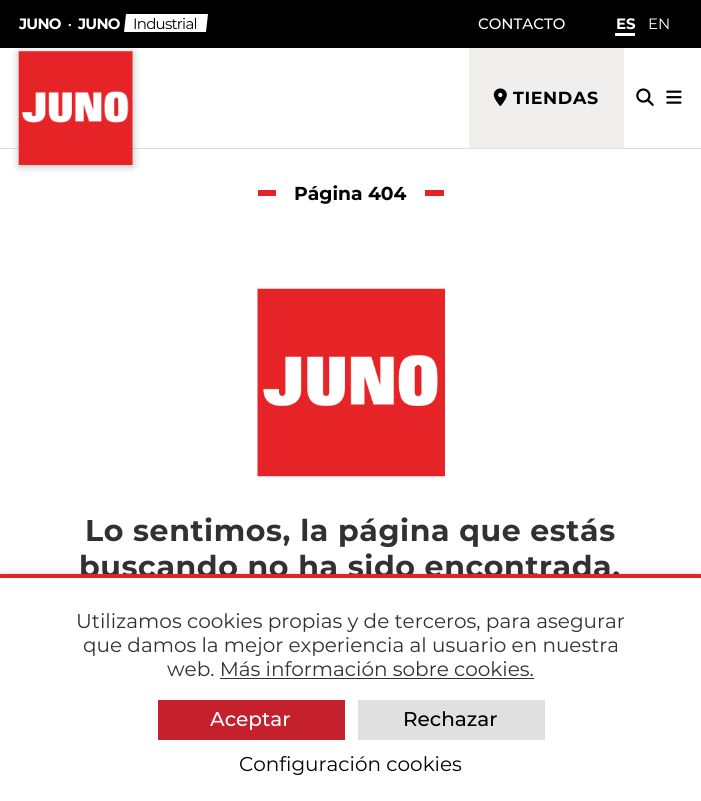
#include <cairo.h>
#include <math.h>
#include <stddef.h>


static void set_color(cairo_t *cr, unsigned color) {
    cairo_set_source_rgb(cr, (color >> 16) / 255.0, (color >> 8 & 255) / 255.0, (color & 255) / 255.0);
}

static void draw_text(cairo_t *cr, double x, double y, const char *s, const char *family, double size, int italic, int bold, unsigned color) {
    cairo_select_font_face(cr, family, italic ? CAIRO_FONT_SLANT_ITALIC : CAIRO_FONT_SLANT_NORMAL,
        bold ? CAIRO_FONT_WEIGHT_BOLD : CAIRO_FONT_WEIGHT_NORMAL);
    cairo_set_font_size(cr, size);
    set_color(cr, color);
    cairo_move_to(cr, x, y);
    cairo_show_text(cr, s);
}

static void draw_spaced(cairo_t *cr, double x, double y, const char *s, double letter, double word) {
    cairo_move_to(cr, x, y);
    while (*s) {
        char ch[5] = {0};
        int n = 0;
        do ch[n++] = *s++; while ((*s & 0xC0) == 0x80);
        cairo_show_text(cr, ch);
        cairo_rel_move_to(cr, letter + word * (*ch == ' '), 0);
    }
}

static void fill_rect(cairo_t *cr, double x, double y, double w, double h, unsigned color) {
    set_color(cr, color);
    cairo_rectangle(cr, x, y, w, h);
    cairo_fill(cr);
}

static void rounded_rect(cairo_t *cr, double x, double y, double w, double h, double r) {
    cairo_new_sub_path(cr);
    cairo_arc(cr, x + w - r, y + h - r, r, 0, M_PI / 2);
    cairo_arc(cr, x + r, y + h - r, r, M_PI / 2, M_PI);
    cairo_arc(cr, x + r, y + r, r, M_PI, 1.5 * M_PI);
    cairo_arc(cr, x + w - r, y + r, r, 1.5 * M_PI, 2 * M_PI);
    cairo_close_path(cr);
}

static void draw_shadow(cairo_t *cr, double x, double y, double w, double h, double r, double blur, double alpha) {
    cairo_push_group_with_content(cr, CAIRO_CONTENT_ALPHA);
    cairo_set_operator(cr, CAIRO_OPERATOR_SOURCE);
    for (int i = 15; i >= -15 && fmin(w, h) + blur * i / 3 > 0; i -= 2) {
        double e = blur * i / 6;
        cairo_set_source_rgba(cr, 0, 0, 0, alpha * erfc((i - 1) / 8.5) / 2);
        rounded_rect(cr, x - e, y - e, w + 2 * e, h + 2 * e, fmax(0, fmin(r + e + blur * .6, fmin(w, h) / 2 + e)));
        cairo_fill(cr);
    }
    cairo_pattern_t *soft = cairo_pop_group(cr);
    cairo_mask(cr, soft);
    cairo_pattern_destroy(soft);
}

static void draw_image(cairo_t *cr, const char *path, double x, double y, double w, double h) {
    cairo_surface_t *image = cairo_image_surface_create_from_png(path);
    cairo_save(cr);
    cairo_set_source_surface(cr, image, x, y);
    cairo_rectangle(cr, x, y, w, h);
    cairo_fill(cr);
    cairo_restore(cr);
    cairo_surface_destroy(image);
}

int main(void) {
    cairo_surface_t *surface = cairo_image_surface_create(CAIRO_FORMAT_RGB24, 701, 801);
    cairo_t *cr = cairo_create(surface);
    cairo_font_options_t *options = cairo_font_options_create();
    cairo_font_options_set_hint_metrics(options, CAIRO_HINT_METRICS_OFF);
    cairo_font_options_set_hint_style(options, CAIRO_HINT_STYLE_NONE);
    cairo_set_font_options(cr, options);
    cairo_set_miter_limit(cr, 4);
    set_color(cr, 0xFFFFFF);
    cairo_paint(cr);
    fill_rect(cr, 0, 0, 701, 48, 0x000000);
    cairo_select_font_face(cr, "Montserrat", CAIRO_FONT_SLANT_NORMAL, CAIRO_FONT_WEIGHT_BOLD);
    cairo_set_font_size(cr, 15);
    set_color(cr, 0xFFFFFF);
    draw_spaced(cr, 19, 29, "JUNO", -0.75, 0);
    cairo_select_font_face(cr, "Montserrat", CAIRO_FONT_SLANT_NORMAL, CAIRO_FONT_WEIGHT_NORMAL);
    cairo_set_font_size(cr, 22);
    draw_spaced(cr, 67, 31, "·", -0.75, 0);
    cairo_select_font_face(cr, "Montserrat", CAIRO_FONT_SLANT_NORMAL, CAIRO_FONT_WEIGHT_BOLD);
    cairo_set_font_size(cr, 15);
    draw_spaced(cr, 78, 29, "JUNO", -0.75, 0);
    cairo_new_path(cr);
    cairo_move_to(cr, 126, 14);
    cairo_line_to(cr, 208, 14);
    cairo_line_to(cr, 206, 32);
    cairo_line_to(cr, 124, 32);
    cairo_close_path(cr);
    cairo_fill(cr);
    cairo_select_font_face(cr, "Montserrat", CAIRO_FONT_SLANT_NORMAL, CAIRO_FONT_WEIGHT_NORMAL);
    set_color(cr, 0x000000);
    draw_spaced(cr, 133, 29, "Industrial", -0.75, 0);
    draw_text(cr, 478, 29, "CONTACTO", "Montserrat Medium", 15, 0, 0, 0xFFFFFF);
    draw_text(cr, 616, 29, "ES", "Montserrat", 15, 0, 1, 0xFFFFFF);
    fill_rect(cr, 615, 33, 20, 3, 0xFFFFFF);
    draw_text(cr, 648, 29, "EN", "Montserrat", 15, 0, 0, 0xFFFFFF);
    fill_rect(cr, 0, 148, 701, 1, 0xDDDDDD);
    set_color(cr, 0x000000);
    draw_shadow(cr, 19, 53, 114, 113, 0, 4, 0.3);
    draw_image(cr, "assets/img1.png", 18, 51, 115, 114);
    fill_rect(cr, 469, 48, 155, 100, 0xF1EFEE);
    draw_image(cr, "assets/img2.png", 493, 88, 14, 18);
    cairo_select_font_face(cr, "Montserrat", CAIRO_FONT_SLANT_NORMAL, CAIRO_FONT_WEIGHT_BOLD);
    cairo_set_font_size(cr, 17.5);
    set_color(cr, 0x000000);
    draw_spaced(cr, 513, 104, "TIENDAS", 0.6, 0);
    draw_image(cr, "assets/img3.png", 636, 88, 18, 18);
    draw_image(cr, "assets/img4.png", 666, 90, 16, 14);
    fill_rect(cr, 258, 190, 18, 6, 0xE52327);
    draw_text(cr, 294, 200, "Página 404", "Montserrat", 18.75, 0, 1, 0x000000);
    fill_rect(cr, 425, 190, 19, 6, 0xE52327);
    draw_image(cr, "assets/img5.png", 257, 288, 188, 189);
    cairo_set_font_size(cr, 30);
    set_color(cr, 0x313131);
    draw_spaced(cr, 85, 541, "Lo sentimos, la página que estás", 0.6, 0);
    draw_spaced(cr, 79, 577, "buscando no ha sido encontrada.", 0.6, 0);
    cairo_save(cr);
    cairo_rectangle(cr, 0, 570, 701, 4);
    cairo_clip(cr);
    set_color(cr, 0x000000);
    draw_shadow(cr, 0, 580, 701, 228, 0, 6, 0.5);
    cairo_restore(cr);
    fill_rect(cr, 0, 574, 701, 4, 0xE52327);
    draw_text(cr, 76, 628, "Utilizamos cookies propias y de terceros, para asegurar", "Montserrat", 20, 0, 0, 0x313131);
    draw_text(cr, 83, 652, "que damos la mejor experiencia al usuario en nuestra", "Montserrat", 20, 0, 0, 0x313131);
    draw_text(cr, 167, 676, "web. Más información sobre cookies.", "Montserrat", 20, 0, 0, 0x313131);
    fill_rect(cr, 220, 678, 314, 1, 0x313131);
    fill_rect(cr, 158, 700, 187, 40, 0xC5212C);
    draw_text(cr, 210, 726, "Aceptar", "Montserrat Medium", 20, 0, 0, 0xFFFFFF);
    fill_rect(cr, 358, 700, 187, 40, 0xE0E0E0);
    draw_text(cr, 403, 726, "Rechazar", "Montserrat Medium", 20, 0, 0, 0x000000);
    draw_text(cr, 239, 771, "Configuración cookies", "Montserrat", 20, 0, 0, 0x000000);
    cairo_surface_write_to_png(surface, "output.png");
    cairo_font_options_destroy(options);
    cairo_destroy(cr);
    cairo_surface_destroy(surface);
    return 0;
}
